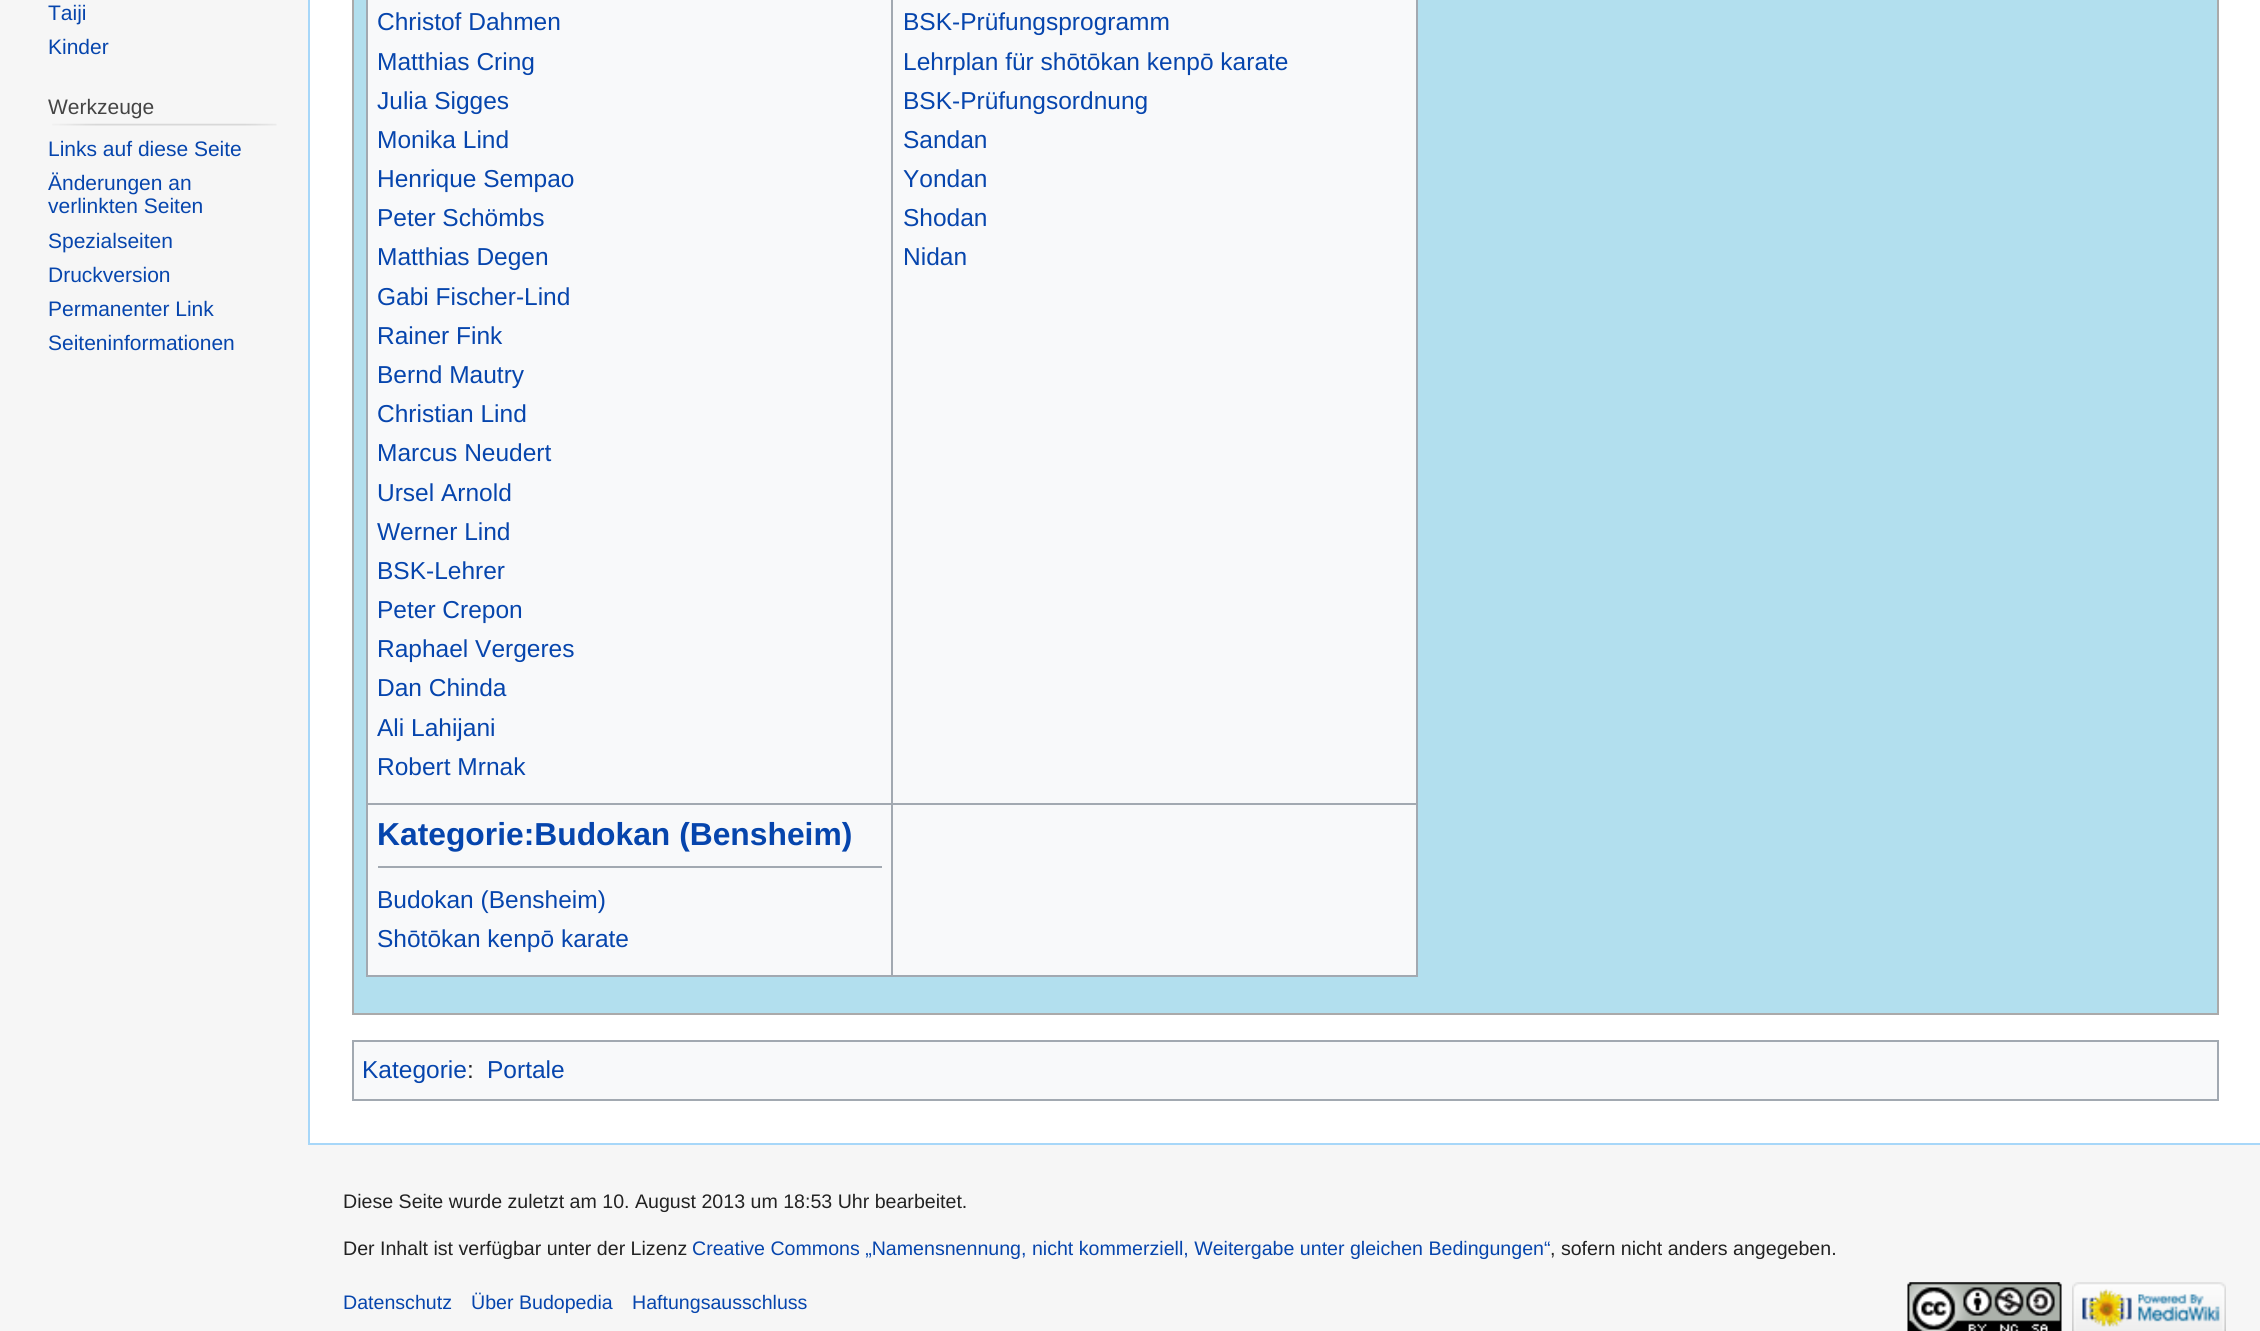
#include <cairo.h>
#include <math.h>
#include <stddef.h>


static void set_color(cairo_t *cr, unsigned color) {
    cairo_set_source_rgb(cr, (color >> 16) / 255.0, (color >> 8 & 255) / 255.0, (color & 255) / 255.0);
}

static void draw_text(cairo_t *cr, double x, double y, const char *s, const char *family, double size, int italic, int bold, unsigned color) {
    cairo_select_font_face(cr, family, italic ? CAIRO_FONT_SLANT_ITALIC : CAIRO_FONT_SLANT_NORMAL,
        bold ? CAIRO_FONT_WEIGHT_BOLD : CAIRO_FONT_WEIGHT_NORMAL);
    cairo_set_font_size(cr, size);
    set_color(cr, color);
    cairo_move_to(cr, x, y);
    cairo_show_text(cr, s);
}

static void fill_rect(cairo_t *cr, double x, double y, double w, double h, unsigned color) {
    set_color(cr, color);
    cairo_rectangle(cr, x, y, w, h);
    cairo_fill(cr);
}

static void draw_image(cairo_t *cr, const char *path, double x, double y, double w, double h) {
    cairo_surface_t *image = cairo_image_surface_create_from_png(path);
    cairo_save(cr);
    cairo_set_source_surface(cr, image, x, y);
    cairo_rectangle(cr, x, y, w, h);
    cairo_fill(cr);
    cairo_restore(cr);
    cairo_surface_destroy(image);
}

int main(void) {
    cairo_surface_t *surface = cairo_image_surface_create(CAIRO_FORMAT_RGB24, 2260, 1331);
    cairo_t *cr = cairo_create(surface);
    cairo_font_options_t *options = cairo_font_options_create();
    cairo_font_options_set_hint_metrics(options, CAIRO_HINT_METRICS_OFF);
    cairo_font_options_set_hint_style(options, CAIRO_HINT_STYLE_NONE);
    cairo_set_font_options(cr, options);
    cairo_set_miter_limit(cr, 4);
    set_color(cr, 0xF6F6F6);
    cairo_paint(cr);
    draw_text(cr, 48, 20, "Taiji", "Liberation Sans", 21, 0, 0, 0x0645AD);
    draw_text(cr, 48, 54, "Kinder", "Liberation Sans", 21, 0, 0, 0x0645AD);
    draw_text(cr, 48, 114, "Werkzeuge", "Liberation Sans", 21, 0, 0, 0x444444);
    draw_image(cr, "assets/img1.png", 52, 123, 225, 3);
    draw_text(cr, 48, 156, "Links auf diese Seite", "Liberation Sans", 21, 0, 0, 0x0645AD);
    draw_text(cr, 48, 190, "Änderungen an", "Liberation Sans", 21, 0, 0, 0x0645AD);
    draw_text(cr, 48, 213, "verlinkten Seiten", "Liberation Sans", 21, 0, 0, 0x0645AD);
    draw_text(cr, 48, 248, "Spezialseiten", "Liberation Sans", 21, 0, 0, 0x0645AD);
    draw_text(cr, 48, 282, "Druckversion", "Liberation Sans", 21, 0, 0, 0x0645AD);
    draw_text(cr, 48, 316, "Permanenter Link", "Liberation Sans", 21, 0, 0, 0x0645AD);
    draw_text(cr, 48, 350, "Seiteninformationen", "Liberation Sans", 21, 0, 0, 0x0645AD);
    fill_rect(cr, 310, 0, 1950, 1143, 0xFFFFFF);
    fill_rect(cr, 308, 1143, 1952, 2, 0xA7D7F9);
    fill_rect(cr, 308, 0, 2, 1145, 0xA7D7F9);
    set_color(cr, 0xB2DFEE);
    cairo_rectangle(cr, 353, -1, 1865, 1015);
    cairo_fill_preserve(cr);
    set_color(cr, 0xAAAAAA);
    cairo_stroke(cr);
    fill_rect(cr, 368, 0, 1048, 975, 0xF8F9FA);
    fill_rect(cr, 1416, 0, 2, 977, 0xA2A9B1);
    fill_rect(cr, 366, 975, 1052, 2, 0xA2A9B1);
    fill_rect(cr, 366, 0, 2, 977, 0xA2A9B1);
    draw_text(cr, 377, 30, "Christof Dahmen", "Liberation Sans", 24.5, 0, 0, 0x0645AD);
    draw_text(cr, 377, 70, "Matthias Cring", "Liberation Sans", 24.5, 0, 0, 0x0645AD);
    draw_text(cr, 377, 109, "Julia Sigges", "Liberation Sans", 24.5, 0, 0, 0x0645AD);
    draw_text(cr, 377, 148, "Monika Lind", "Liberation Sans", 24.5, 0, 0, 0x0645AD);
    draw_text(cr, 377, 187, "Henrique Sempao", "Liberation Sans", 24.5, 0, 0, 0x0645AD);
    draw_text(cr, 377, 226, "Peter Schömbs", "Liberation Sans", 24.5, 0, 0, 0x0645AD);
    draw_text(cr, 377, 265, "Matthias Degen", "Liberation Sans", 24.5, 0, 0, 0x0645AD);
    draw_text(cr, 377, 305, "Gabi Fischer-Lind", "Liberation Sans", 24.5, 0, 0, 0x0645AD);
    draw_text(cr, 377, 344, "Rainer Fink", "Liberation Sans", 24.5, 0, 0, 0x0645AD);
    draw_text(cr, 377, 383, "Bernd Mautry", "Liberation Sans", 24.5, 0, 0, 0x0645AD);
    draw_text(cr, 377, 422, "Christian Lind", "Liberation Sans", 24.5, 0, 0, 0x0645AD);
    draw_text(cr, 377, 461, "Marcus Neudert", "Liberation Sans", 24.5, 0, 0, 0x0645AD);
    draw_text(cr, 377, 501, "Ursel Arnold", "Liberation Sans", 24.5, 0, 0, 0x0645AD);
    draw_text(cr, 377, 540, "Werner Lind", "Liberation Sans", 24.5, 0, 0, 0x0645AD);
    draw_text(cr, 377, 579, "BSK-Lehrer", "Liberation Sans", 24.5, 0, 0, 0x0645AD);
    draw_text(cr, 377, 618, "Peter Crepon", "Liberation Sans", 24.5, 0, 0, 0x0645AD);
    draw_text(cr, 377, 657, "Raphael Vergeres", "Liberation Sans", 24.5, 0, 0, 0x0645AD);
    draw_text(cr, 377, 696, "Dan Chinda", "Liberation Sans", 24.5, 0, 0, 0x0645AD);
    draw_text(cr, 377, 736, "Ali Lahijani", "Liberation Sans", 24.5, 0, 0, 0x0645AD);
    draw_text(cr, 377, 775, "Robert Mrnak", "Liberation Sans", 24.5, 0, 0, 0x0645AD);
    fill_rect(cr, 891, 803, 527, 2, 0xA2A9B1);
    fill_rect(cr, 891, 803, 2, 174, 0xA2A9B1);
    fill_rect(cr, 366, 803, 527, 2, 0xA2A9B1);
    fill_rect(cr, 891, 0, 2, 805, 0xA2A9B1);
    draw_text(cr, 903, 30, "BSK-Prüfungsprogramm", "Liberation Sans", 24.5, 0, 0, 0x0645AD);
    draw_text(cr, 903, 70, "Lehrplan für shōtōkan kenpō karate", "Liberation Sans", 24.5, 0, 0, 0x0645AD);
    draw_text(cr, 903, 109, "BSK-Prüfungsordnung", "Liberation Sans", 24.5, 0, 0, 0x0645AD);
    draw_text(cr, 903, 148, "Sandan", "Liberation Sans", 24.5, 0, 0, 0x0645AD);
    draw_text(cr, 903, 187, "Yondan", "Liberation Sans", 24.5, 0, 0, 0x0645AD);
    draw_text(cr, 903, 226, "Shodan", "Liberation Sans", 24.5, 0, 0, 0x0645AD);
    draw_text(cr, 903, 265, "Nidan", "Liberation Sans", 24.5, 0, 0, 0x0645AD);
    draw_text(cr, 377, 845, "Kategorie:Budokan (Bensheim)", "Liberation Sans", 31.8, 0, 1, 0x0645AD);
    fill_rect(cr, 378, 866, 504, 2, 0xA2A9B1);
    draw_text(cr, 377, 908, "Budokan (Bensheim)", "Liberation Sans", 24.5, 0, 0, 0x0645AD);
    draw_text(cr, 377, 947, "Shōtōkan kenpō karate", "Liberation Sans", 24.5, 0, 0, 0x0645AD);
    set_color(cr, 0xF8F9FA);
    cairo_rectangle(cr, 353, 1041, 1865, 59);
    cairo_fill_preserve(cr);
    set_color(cr, 0xA2A9B1);
    cairo_stroke(cr);
    draw_text(cr, 362, 1078, "Kategorie", "Liberation Sans", 24.5, 0, 0, 0x0645AD);
    draw_text(cr, 467, 1078, ":", "Liberation Sans", 24.5, 0, 0, 0x222222);
    draw_text(cr, 487, 1078, "Portale", "Liberation Sans", 24.5, 0, 0, 0x0645AD);
    draw_text(cr, 343, 1208, "Diese Seite wurde zuletzt am 10. August 2013 um 18:53 Uhr bearbeitet.", "Liberation Sans", 19.6, 0, 0, 0x222222);
    draw_text(cr, 343, 1255, "Der Inhalt ist verfügbar unter der Lizenz", "Liberation Sans", 19.6, 0, 0, 0x222222);
    draw_text(cr, 692, 1255, "Creative Commons „Namensnennung, nicht kommerziell, Weitergabe unter gleichen Bedingungen“", "Liberation Sans", 19.6, 0, 0, 0x0645AD);
    draw_text(cr, 1550, 1255, ", sofern nicht anders angegeben.", "Liberation Sans", 19.6, 0, 0, 0x222222);
    draw_text(cr, 343, 1309, "Datenschutz", "Liberation Sans", 19.6, 0, 0, 0x0645AD);
    draw_text(cr, 471, 1309, "Über Budopedia", "Liberation Sans", 19.6, 0, 0, 0x0645AD);
    draw_text(cr, 632, 1309, "Haftungsausschluss", "Liberation Sans", 19.6, 0, 0, 0x0645AD);
    draw_image(cr, "assets/img2.png", 1907, 1282, 155, 49);
    draw_image(cr, "assets/img3.png", 2072, 1282, 154, 49);
    cairo_surface_write_to_png(surface, "output.png");
    cairo_font_options_destroy(options);
    cairo_destroy(cr);
    cairo_surface_destroy(surface);
    return 0;
}
